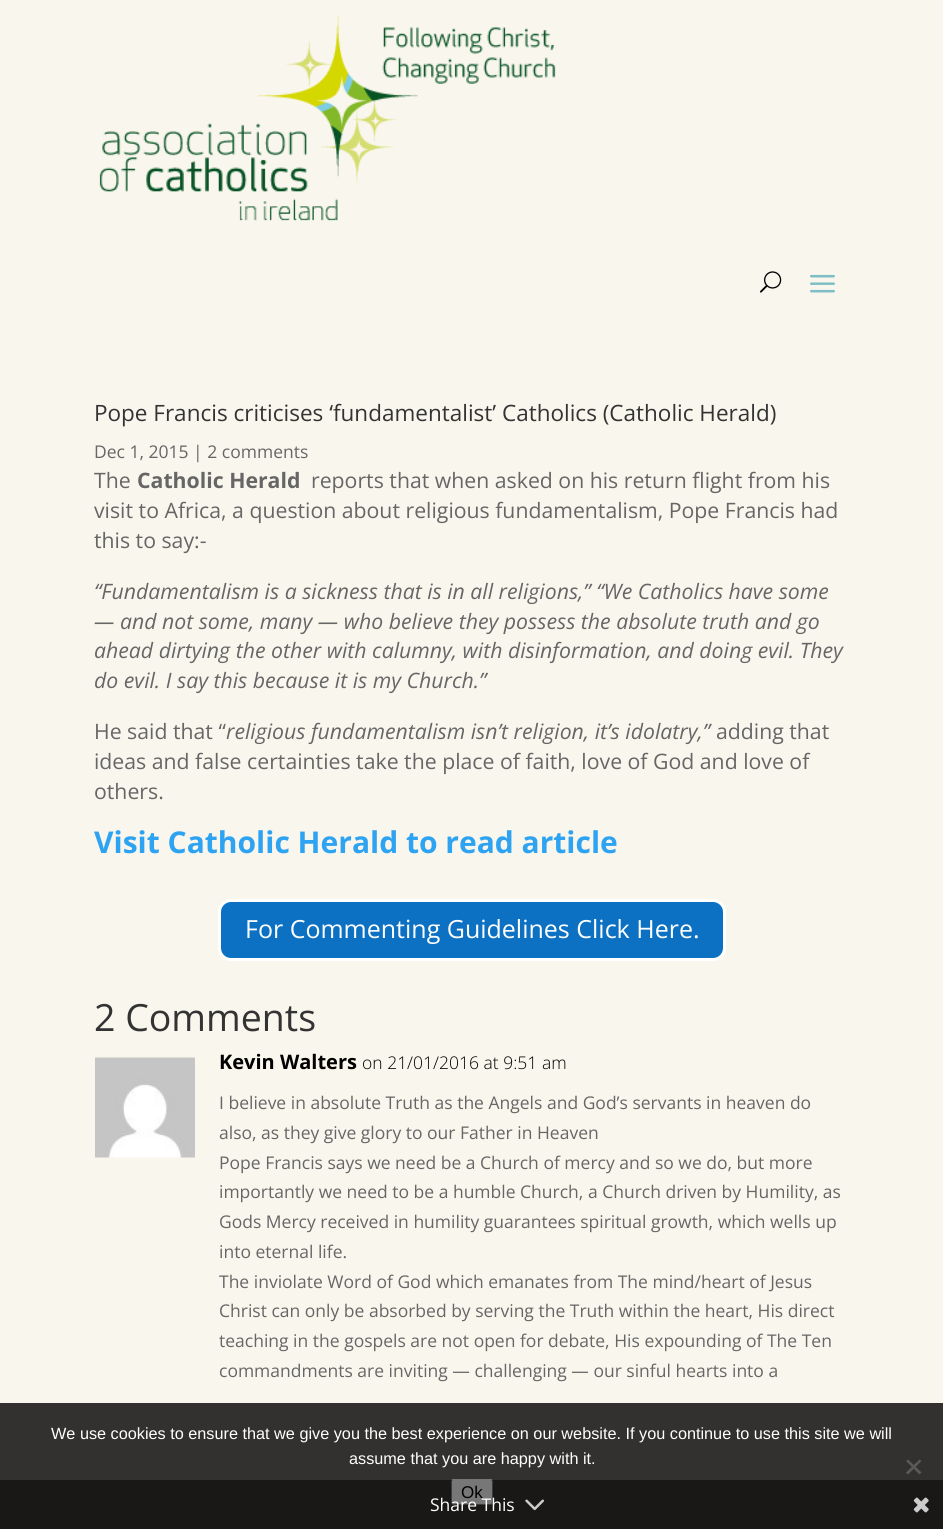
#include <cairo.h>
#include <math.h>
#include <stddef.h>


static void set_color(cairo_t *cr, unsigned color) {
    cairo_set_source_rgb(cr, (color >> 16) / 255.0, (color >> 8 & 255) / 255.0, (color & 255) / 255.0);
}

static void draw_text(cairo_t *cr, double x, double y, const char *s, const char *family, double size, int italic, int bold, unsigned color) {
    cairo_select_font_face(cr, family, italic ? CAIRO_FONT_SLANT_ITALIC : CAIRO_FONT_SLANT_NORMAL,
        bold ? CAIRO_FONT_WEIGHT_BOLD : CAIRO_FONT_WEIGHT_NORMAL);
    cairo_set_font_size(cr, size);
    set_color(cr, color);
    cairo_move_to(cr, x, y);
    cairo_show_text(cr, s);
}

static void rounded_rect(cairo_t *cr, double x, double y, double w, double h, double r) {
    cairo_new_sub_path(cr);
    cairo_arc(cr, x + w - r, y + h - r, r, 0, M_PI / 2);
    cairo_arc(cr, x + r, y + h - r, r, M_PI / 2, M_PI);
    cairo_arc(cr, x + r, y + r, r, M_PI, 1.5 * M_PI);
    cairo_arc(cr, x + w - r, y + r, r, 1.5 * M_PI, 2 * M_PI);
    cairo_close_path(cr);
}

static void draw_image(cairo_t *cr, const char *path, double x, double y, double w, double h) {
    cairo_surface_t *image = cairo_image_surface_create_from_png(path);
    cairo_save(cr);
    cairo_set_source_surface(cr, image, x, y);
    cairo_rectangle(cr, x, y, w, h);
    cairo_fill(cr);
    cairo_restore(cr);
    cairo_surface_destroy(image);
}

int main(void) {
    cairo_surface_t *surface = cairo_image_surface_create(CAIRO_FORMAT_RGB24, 943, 1529);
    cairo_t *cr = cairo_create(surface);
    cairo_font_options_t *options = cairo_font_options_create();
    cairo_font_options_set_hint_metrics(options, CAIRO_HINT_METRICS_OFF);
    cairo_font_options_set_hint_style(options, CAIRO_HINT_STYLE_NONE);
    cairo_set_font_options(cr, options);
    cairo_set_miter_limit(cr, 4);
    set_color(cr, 0xF9F6ED);
    cairo_paint(cr);
    draw_image(cr, "assets/img1.png", 99, 16, 457, 205);
    draw_image(cr, "assets/img2.png", 760, 271, 22, 22);
    draw_image(cr, "assets/img3.png", 810, 274, 25, 19);
    draw_text(cr, 94, 421, "Pope Francis criticises ‘fundamentalist’ Catholics (Catholic Herald)", "Open Sans", 22.5, 0, 0, 0x333333);
    draw_text(cr, 94, 458, "Dec 1, 2015 | 2 comments", "Open Sans", 17.5, 0, 0, 0x666666);
    draw_text(cr, 94, 488, "The", "Open Sans", 21.25, 0, 0, 0x666666);
    draw_text(cr, 137, 488, "Catholic Herald", "Open Sans", 21.25, 0, 1, 0x666666);
    draw_text(cr, 311, 488, "reports that when asked on his return flight from his", "Open Sans", 21.25, 0, 0, 0x666666);
    draw_text(cr, 94, 518, "visit to Africa, a question about religious fundamentalism, Pope Francis had", "Open Sans", 21.25, 0, 0, 0x666666);
    draw_text(cr, 94, 548, "this to say:-", "Open Sans", 21.25, 0, 0, 0x666666);
    draw_text(cr, 94, 599, "“Fundamentalism is a sickness that is in all religions,” “We Catholics have some", "Open Sans", 21.25, 1, 0, 0x666666);
    draw_text(cr, 94, 629, "— and not some, many — who believe they possess the absolute truth and go", "Open Sans", 21.25, 1, 0, 0x666666);
    draw_text(cr, 94, 658, "ahead dirtying the other with calumny, with disinformation, and doing evil. They", "Open Sans", 21.25, 1, 0, 0x666666);
    draw_text(cr, 94, 688, "do evil. I say this because it is my Church.”", "Open Sans", 21.25, 1, 0, 0x666666);
    draw_text(cr, 94, 739, "He said that “", "Open Sans", 21.25, 0, 0, 0x666666);
    draw_text(cr, 226, 739, "religious fundamentalism isn’t religion, it’s idolatry,”", "Open Sans", 21.25, 1, 0, 0x666666);
    draw_text(cr, 716, 739, "adding that", "Open Sans", 21.25, 0, 0, 0x666666);
    draw_text(cr, 94, 769, "ideas and false certainties take the place of faith, love of God and love of", "Open Sans", 21.25, 0, 0, 0x666666);
    draw_text(cr, 94, 799, "others.", "Open Sans", 21.25, 0, 0, 0x666666);
    draw_text(cr, 94, 853, "Visit Catholic Herald to read article", "Open Sans", 30, 0, 1, 0x2EA3F2);
    set_color(cr, 0x0C71C3);
    rounded_rect(cr, 219.5, 900.5, 505, 59, 11.5);
    cairo_fill_preserve(cr);
    set_color(cr, 0xFFFFFF);
    cairo_set_line_width(cr, 3);
    cairo_stroke(cr);
    draw_text(cr, 245, 938, "For Commenting Guidelines Click Here.", "Open Sans", 25, 0, 0, 0xFFFFFF);
    draw_text(cr, 94, 1031, "2 Comments", "Open Sans", 37.5, 0, 0, 0x333333);
    draw_image(cr, "assets/img4.png", 95, 1057, 100, 101);
    draw_text(cr, 219, 1069, "Kevin Walters", "Open Sans", 20, 0, 1, 0x000000);
    draw_text(cr, 362, 1069, "on 21/01/2016 at 9:51 am", "Open Sans Light", 17.5, 0, 0, 0x000000);
    draw_text(cr, 219, 1109, "I believe in absolute Truth as the Angels and God’s servants in heaven do", "Open Sans", 17.5, 0, 0, 0x666666);
    draw_text(cr, 219, 1139, "also, as they give glory to our Father in Heaven", "Open Sans", 17.5, 0, 0, 0x666666);
    draw_text(cr, 219, 1169, "Pope Francis says we need be a Church of mercy and so we do, but more", "Open Sans", 17.5, 0, 0, 0x666666);
    draw_text(cr, 219, 1198, "importantly we need to be a humble Church, a Church driven by Humility, as", "Open Sans", 17.5, 0, 0, 0x666666);
    draw_text(cr, 219, 1228, "Gods Mercy received in humility guarantees spiritual growth, which wells up", "Open Sans", 17.5, 0, 0, 0x666666);
    draw_text(cr, 219, 1258, "into eternal life.", "Open Sans", 17.5, 0, 0, 0x666666);
    draw_text(cr, 219, 1288, "The inviolate Word of God which emanates from The mind/heart of Jesus", "Open Sans", 17.5, 0, 0, 0x666666);
    draw_text(cr, 219, 1317, "Christ can only be absorbed by serving the Truth within the heart, His direct", "Open Sans", 17.5, 0, 0, 0x666666);
    draw_text(cr, 219, 1347, "teaching in the gospels are not open for debate, His expounding of The Ten", "Open Sans", 17.5, 0, 0, 0x666666);
    draw_text(cr, 219, 1377, "commandments are inviting — challenging — our sinful hearts into a", "Open Sans", 17.5, 0, 0, 0x666666);
    cairo_set_source_rgba(cr, 0, 0, 0, 0.8);
    cairo_rectangle(cr, 0, 1403, 943, 126);
    cairo_fill(cr);
    draw_text(cr, 51, 1439, "We use cookies to ensure that we give you the best experience on our website. If you continue to use this site we will", "Liberation Sans", 16.25, 0, 0, 0xFFFFFF);
    draw_text(cr, 349, 1464, "assume that you are happy with it.", "Liberation Sans", 16.25, 0, 0, 0xFFFFFF);
    set_color(cr, 0x595958);
    cairo_new_path(cr);
    cairo_move_to(cr, 919.5, 1459.5);
    cairo_line_to(cr, 921.5, 1461);
    cairo_line_to(cr, 908, 1474.5);
    cairo_line_to(cr, 906, 1472.5);
    cairo_close_path(cr);
    cairo_fill(cr);
    cairo_new_path(cr);
    cairo_move_to(cr, 906, 1461);
    cairo_line_to(cr, 908, 1459.5);
    cairo_line_to(cr, 921.5, 1472.5);
    cairo_line_to(cr, 919.5, 1474.5);
    cairo_close_path(cr);
    cairo_fill(cr);
    set_color(cr, 0xEFEFEF);
    rounded_rect(cr, 451.5, 1479.5, 41, 25, 2);
    cairo_fill_preserve(cr);
    set_color(cr, 0x767676);
    cairo_set_line_width(cr, 1);
    cairo_stroke(cr);
    draw_text(cr, 461, 1498, "Ok", "Liberation Sans", 17, 0, 0, 0x000000);
    cairo_set_source_rgba(cr, 0, 0, 0, 0.5);
    cairo_rectangle(cr, 0, 1480, 943, 49);
    cairo_fill(cr);
    draw_text(cr, 430, 1511, "Share This", "Open Sans", 17.5, 0, 0, 0xFFFFFF);
    draw_image(cr, "assets/img5.png", 525, 1499, 19, 12);
    draw_image(cr, "assets/img6.png", 913, 1497, 16, 16);
    cairo_surface_write_to_png(surface, "output.png");
    cairo_font_options_destroy(options);
    cairo_destroy(cr);
    cairo_surface_destroy(surface);
    return 0;
}
